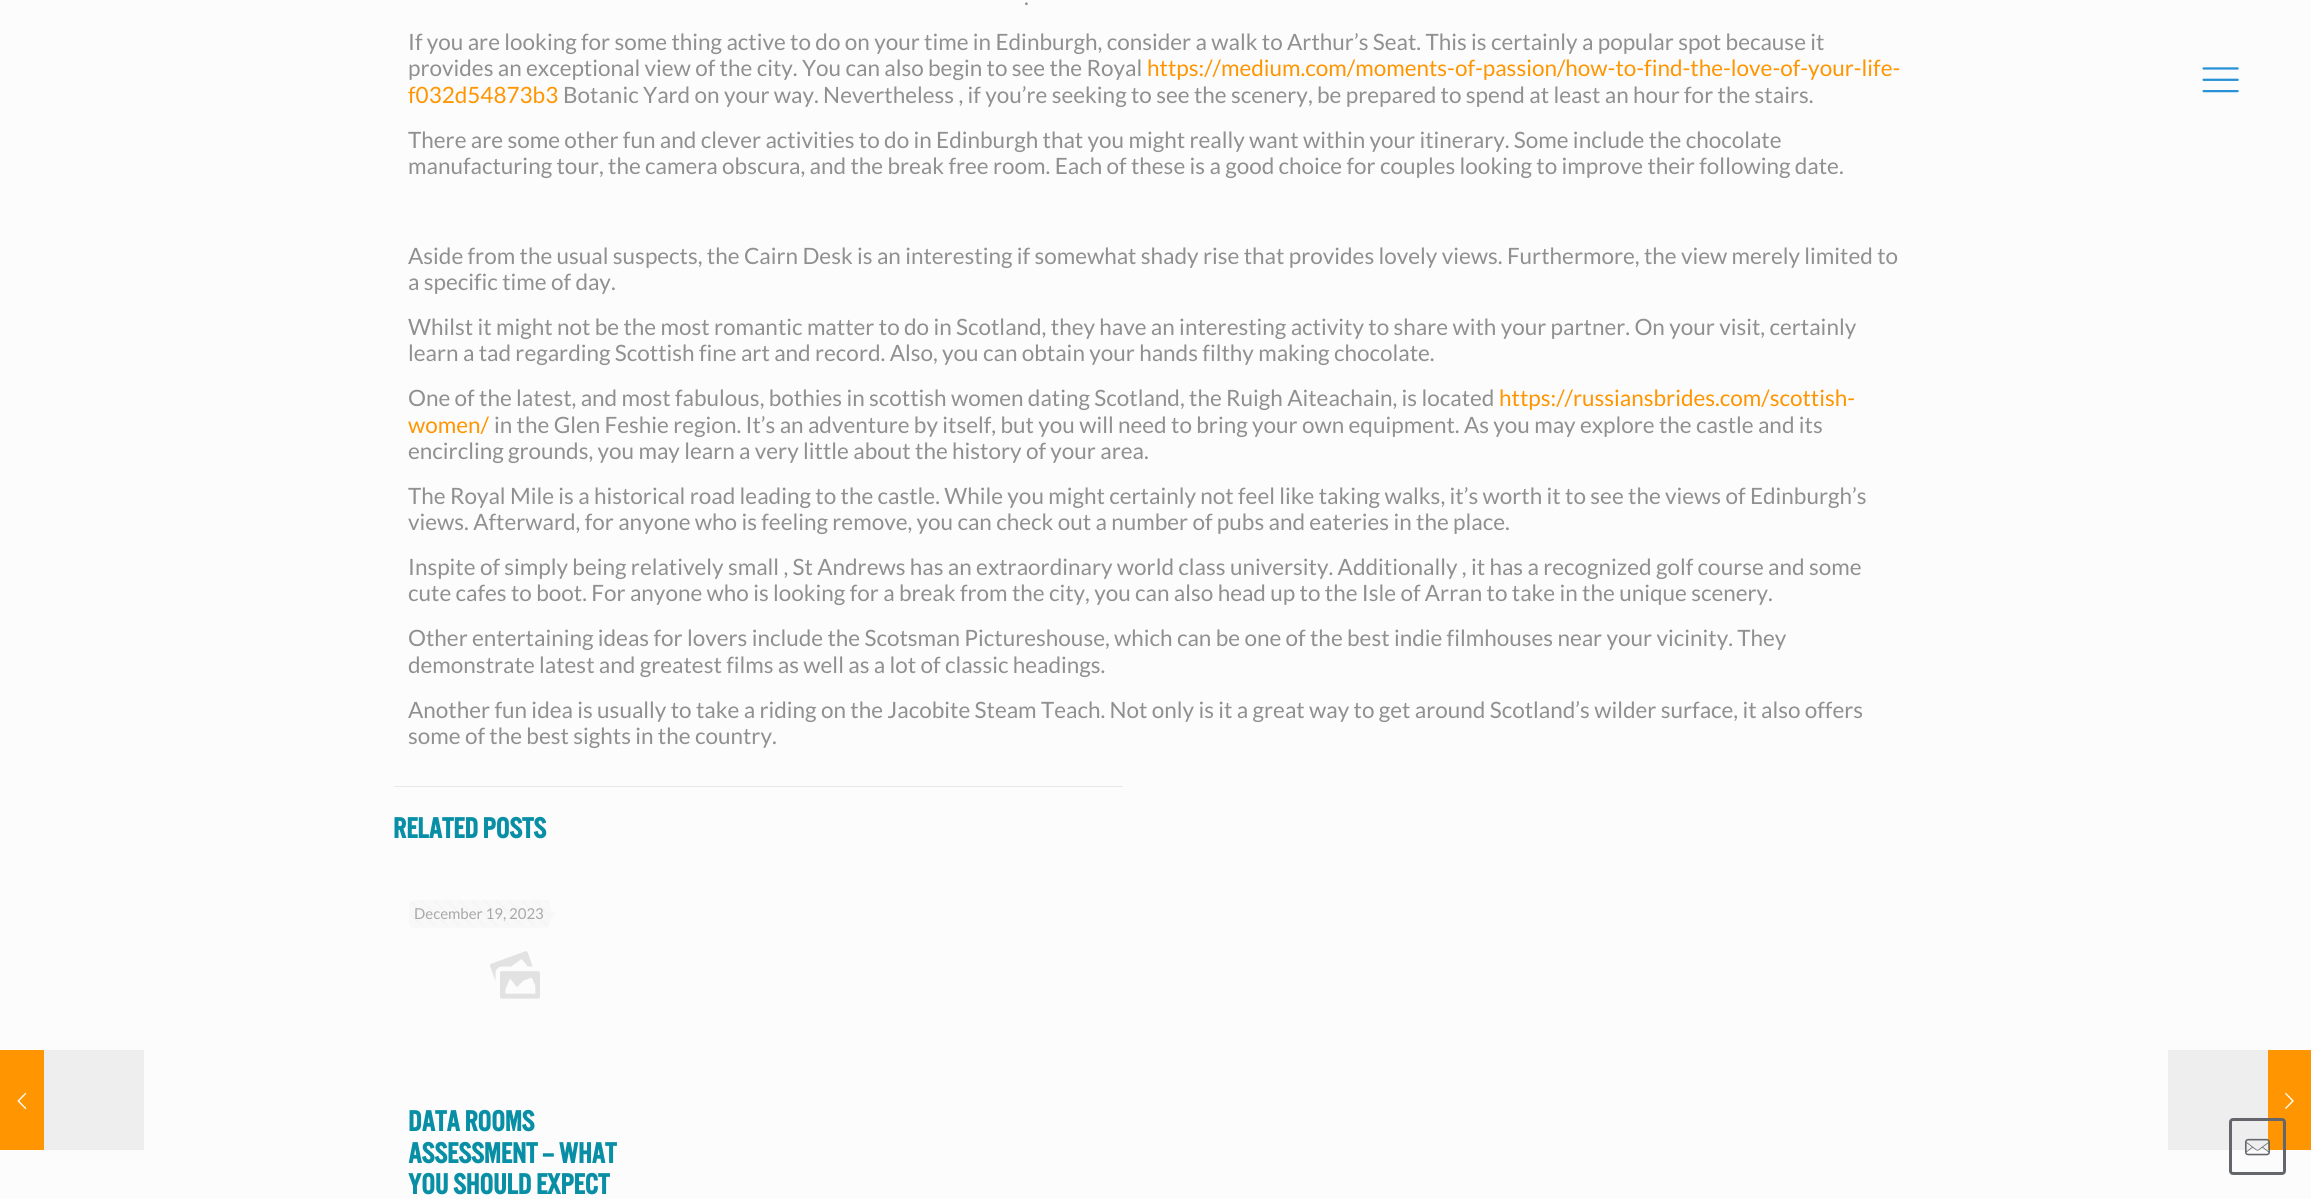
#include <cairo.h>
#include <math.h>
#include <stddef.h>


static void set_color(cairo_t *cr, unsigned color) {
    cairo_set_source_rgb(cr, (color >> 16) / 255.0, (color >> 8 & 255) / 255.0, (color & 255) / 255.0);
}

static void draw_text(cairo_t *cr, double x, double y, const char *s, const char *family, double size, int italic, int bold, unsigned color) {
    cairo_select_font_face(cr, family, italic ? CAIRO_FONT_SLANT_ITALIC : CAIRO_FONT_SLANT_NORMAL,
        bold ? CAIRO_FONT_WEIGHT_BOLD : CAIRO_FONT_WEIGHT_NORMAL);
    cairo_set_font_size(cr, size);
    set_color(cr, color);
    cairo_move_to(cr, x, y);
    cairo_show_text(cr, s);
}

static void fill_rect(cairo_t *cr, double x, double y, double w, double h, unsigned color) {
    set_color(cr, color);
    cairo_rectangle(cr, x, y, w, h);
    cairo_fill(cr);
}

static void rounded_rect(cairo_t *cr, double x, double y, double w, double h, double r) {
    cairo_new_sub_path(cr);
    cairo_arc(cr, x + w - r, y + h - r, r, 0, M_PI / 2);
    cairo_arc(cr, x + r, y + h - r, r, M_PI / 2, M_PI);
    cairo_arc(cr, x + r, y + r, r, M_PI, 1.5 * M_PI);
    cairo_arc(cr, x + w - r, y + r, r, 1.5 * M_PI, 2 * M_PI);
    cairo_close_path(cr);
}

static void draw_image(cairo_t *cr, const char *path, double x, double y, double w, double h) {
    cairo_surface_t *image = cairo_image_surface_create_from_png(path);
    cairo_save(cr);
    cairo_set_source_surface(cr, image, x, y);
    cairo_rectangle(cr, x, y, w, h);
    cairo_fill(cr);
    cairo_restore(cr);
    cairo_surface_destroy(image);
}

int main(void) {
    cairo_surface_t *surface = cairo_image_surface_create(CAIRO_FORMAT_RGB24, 2311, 1199);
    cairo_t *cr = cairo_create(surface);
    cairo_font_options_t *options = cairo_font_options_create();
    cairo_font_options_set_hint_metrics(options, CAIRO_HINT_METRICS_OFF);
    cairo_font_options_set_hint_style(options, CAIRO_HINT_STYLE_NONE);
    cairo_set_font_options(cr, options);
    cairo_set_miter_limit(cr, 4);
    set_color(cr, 0xFCFCFC);
    cairo_paint(cr);
    fill_rect(cr, 0, 1050, 44, 100, 0xFF9500);
    draw_image(cr, "assets/img1.png", 17, 1092, 10, 17);
    fill_rect(cr, 44, 1050, 100, 100, 0xEEEEEE);
    draw_text(cr, 1024, 5, ".", "Lato", 22.5, 0, 0, 0x909090);
    draw_text(cr, 408, 50, "If you are looking for some thing active to do on your time in Edinburgh, consider a walk to Arthur’s Seat. This is certainly a popular spot because it", "Lato", 22.5, 0, 0, 0x909090);
    draw_text(cr, 408, 76, "provides an exceptional view of the city. You can also begin to see the Royal", "Lato", 22.5, 0, 0, 0x909090);
    draw_text(cr, 1147, 76, "https://medium.com/moments-of-passion/how-to-find-the-love-of-your-life-", "Lato", 22.5, 0, 0, 0xFF9500);
    draw_text(cr, 408, 103, "f032d54873b3", "Lato", 22.5, 0, 0, 0xFF9500);
    draw_text(cr, 563, 103, "Botanic Yard on your way. Nevertheless , if you’re seeking to see the scenery, be prepared to spend at least an hour for the stairs.", "Lato", 22.5, 0, 0, 0x909090);
    draw_text(cr, 408, 148, "There are some other fun and clever activities to do in Edinburgh that you might really want within your itinerary. Some include the chocolate", "Lato", 22.5, 0, 0, 0x909090);
    draw_text(cr, 408, 174, "manufacturing tour, the camera obscura, and the break free room. Each of these is a good choice for couples looking to improve their following date.", "Lato", 22.5, 0, 0, 0x909090);
    draw_text(cr, 408, 264, "Aside from the usual suspects, the Cairn Desk is an interesting if somewhat shady rise that provides lovely views. Furthermore, the view merely limited to", "Lato", 22.5, 0, 0, 0x909090);
    draw_text(cr, 408, 290, "a specific time of day.", "Lato", 22.5, 0, 0, 0x909090);
    draw_text(cr, 408, 335, "Whilst it might not be the most romantic matter to do in Scotland, they have an interesting activity to share with your partner. On your visit, certainly", "Lato", 22.5, 0, 0, 0x909090);
    draw_text(cr, 408, 361, "learn a tad regarding Scottish fine art and record. Also, you can obtain your hands filthy making chocolate.", "Lato", 22.5, 0, 0, 0x909090);
    draw_text(cr, 408, 406, "One of the latest, and most fabulous, bothies in scottish women dating Scotland, the Ruigh Aiteachain, is located", "Lato", 22.5, 0, 0, 0x909090);
    draw_text(cr, 1499, 406, "https://russiansbrides.com/scottish-", "Lato", 22.5, 0, 0, 0xFF9500);
    draw_text(cr, 408, 433, "women/", "Lato", 22.5, 0, 0, 0xFF9500);
    draw_text(cr, 494, 433, "in the Glen Feshie region. It’s an adventure by itself, but you will need to bring your own equipment. As you may explore the castle and its", "Lato", 22.5, 0, 0, 0x909090);
    draw_text(cr, 408, 459, "encircling grounds, you may learn a very little about the history of your area.", "Lato", 22.5, 0, 0, 0x909090);
    draw_text(cr, 408, 504, "The Royal Mile is a historical road leading to the castle. While you might certainly not feel like taking walks, it’s worth it to see the views of Edinburgh’s", "Lato", 22.5, 0, 0, 0x909090);
    draw_text(cr, 408, 530, "views. Afterward, for anyone who is feeling remove, you can check out a number of pubs and eateries in the place.", "Lato", 22.5, 0, 0, 0x909090);
    draw_text(cr, 408, 575, "Inspite of simply being relatively small , St Andrews has an extraordinary world class university. Additionally , it has a recognized golf course and some", "Lato", 22.5, 0, 0, 0x909090);
    draw_text(cr, 408, 601, "cute cafes to boot. For anyone who is looking for a break from the city, you can also head up to the Isle of Arran to take in the unique scenery.", "Lato", 22.5, 0, 0, 0x909090);
    draw_text(cr, 408, 646, "Other entertaining ideas for lovers include the Scotsman Pictureshouse, which can be one of the best indie filmhouses near your vicinity. They", "Lato", 22.5, 0, 0, 0x909090);
    draw_text(cr, 408, 673, "demonstrate latest and greatest films as well as a lot of classic headings.", "Lato", 22.5, 0, 0, 0x909090);
    draw_text(cr, 408, 718, "Another fun idea is usually to take a riding on the Jacobite Steam Teach. Not only is it a great way to get around Scotland’s wilder surface, it also offers", "Lato", 22.5, 0, 0, 0x909090);
    draw_text(cr, 408, 744, "some of the best sights in the country.", "Lato", 22.5, 0, 0, 0x909090);
    fill_rect(cr, 394, 786, 729, 1, 0xE8E8E8);
    draw_text(cr, 393, 838, "Related posts", "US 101", 30, 0, 1, 0x088FA5);
    set_color(cr, 0xF8F8F8);
    rounded_rect(cr, 409, 900, 141, 28, 5);
    cairo_fill(cr);
    draw_image(cr, "assets/img2.png", 410, 900, 140, 26);
    draw_text(cr, 414, 919, "December 19, 2023", "Lato", 15, 0, 0, 0xA8A8A8);
    set_color(cr, 0xF8F8F8);
    cairo_new_path(cr);
    cairo_move_to(cr, 550, 920);
    cairo_line_to(cr, 550, 907.5);
    cairo_line_to(cr, 556, 914);
    cairo_close_path(cr);
    cairo_fill(cr);
    draw_image(cr, "assets/img3.png", 490, 951, 50, 48);
    draw_text(cr, 408, 1131, "Data Rooms", "US 101", 30, 0, 1, 0x088FA5);
    draw_text(cr, 408, 1163, "Assessment – What", "US 101", 30, 0, 1, 0x088FA5);
    draw_text(cr, 408, 1194, "you should expect", "US 101", 30, 0, 1, 0x088FA5);
    draw_image(cr, "assets/img4.png", 2202, 67, 37, 26);
    fill_rect(cr, 2168, 1050, 100, 100, 0xEEEEEE);
    fill_rect(cr, 2268, 1050, 43, 100, 0xFF9500);
    draw_image(cr, "assets/img5.png", 2285, 1092, 9, 17);
    rounded_rect(cr, 2230.5, 1119.5, 54, 54, 2.5);
    set_color(cr, 0x65666C);
    cairo_set_line_width(cr, 3);
    cairo_stroke(cr);
    draw_image(cr, "assets/img6.png", 2245, 1138, 25, 18);
    cairo_surface_write_to_png(surface, "output.png");
    cairo_font_options_destroy(options);
    cairo_destroy(cr);
    cairo_surface_destroy(surface);
    return 0;
}
